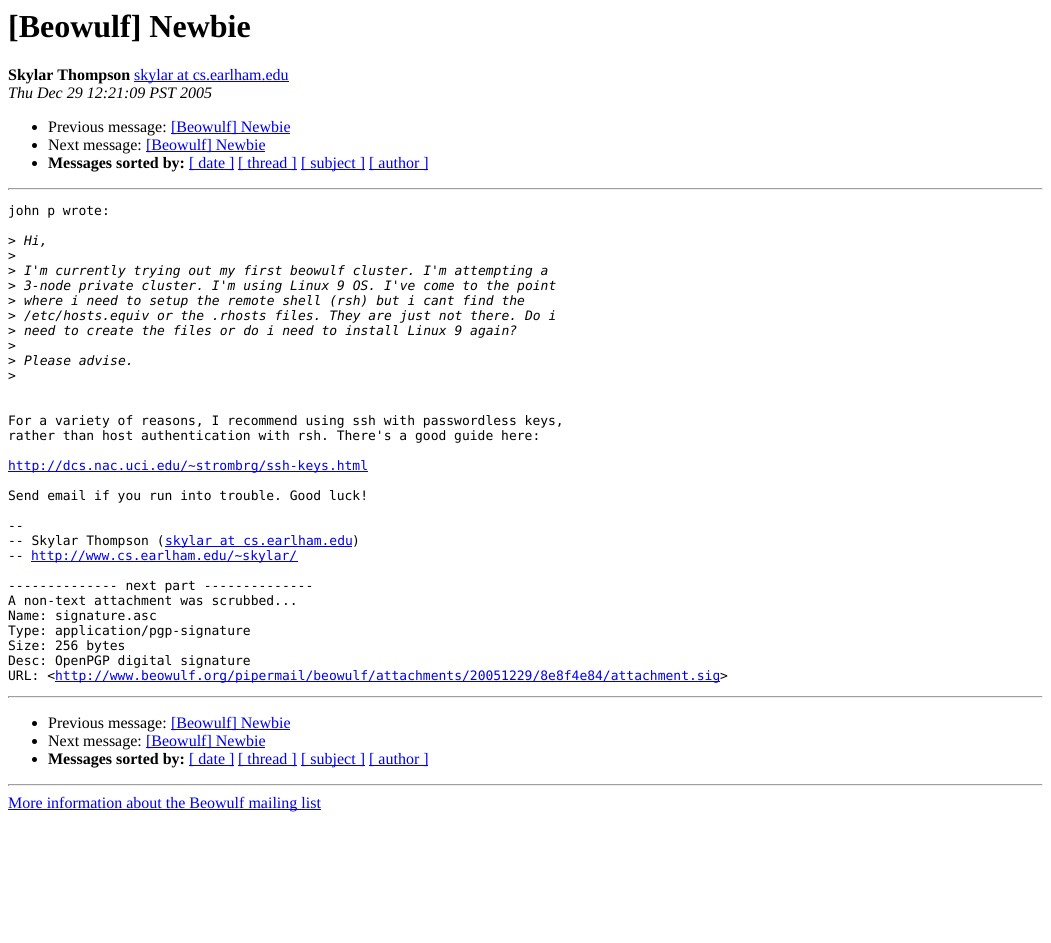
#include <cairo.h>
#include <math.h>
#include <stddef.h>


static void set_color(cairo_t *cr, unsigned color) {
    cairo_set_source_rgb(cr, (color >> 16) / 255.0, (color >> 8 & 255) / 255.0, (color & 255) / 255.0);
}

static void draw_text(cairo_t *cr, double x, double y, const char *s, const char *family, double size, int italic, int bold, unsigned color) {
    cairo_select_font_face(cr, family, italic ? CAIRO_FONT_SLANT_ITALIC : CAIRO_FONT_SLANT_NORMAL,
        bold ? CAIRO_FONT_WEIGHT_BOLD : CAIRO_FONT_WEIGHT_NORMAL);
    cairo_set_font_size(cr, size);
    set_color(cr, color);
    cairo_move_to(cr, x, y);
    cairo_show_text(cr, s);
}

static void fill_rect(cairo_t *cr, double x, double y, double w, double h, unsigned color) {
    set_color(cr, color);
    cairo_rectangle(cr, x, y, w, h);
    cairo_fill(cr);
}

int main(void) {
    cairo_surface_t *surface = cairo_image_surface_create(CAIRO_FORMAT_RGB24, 1051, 943);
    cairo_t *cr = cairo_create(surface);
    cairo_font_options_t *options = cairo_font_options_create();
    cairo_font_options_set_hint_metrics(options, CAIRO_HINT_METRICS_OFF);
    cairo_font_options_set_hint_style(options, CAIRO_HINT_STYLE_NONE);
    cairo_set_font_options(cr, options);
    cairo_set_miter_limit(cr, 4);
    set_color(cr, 0xFFFFFF);
    cairo_paint(cr);
    draw_text(cr, 8, 37, "[Beowulf] Newbie", "Liberation Serif", 32, 0, 1, 0x000000);
    draw_text(cr, 8, 80, "Skylar Thompson", "Liberation Serif", 16, 0, 1, 0x000000);
    fill_rect(cr, 134, 81, 155, 1, 0x0000EE);
    draw_text(cr, 134, 80, "skylar at cs.earlham.edu", "Liberation Serif", 16, 0, 0, 0x0000EE);
    draw_text(cr, 8, 98, "Thu Dec 29 12:21:09 PST 2005", "Liberation Serif", 16, 1, 0, 0x000000);
    cairo_new_path(cr);
    cairo_arc(cr, 34.5, 127.5, 2.5, 0, 2 * M_PI);
    cairo_fill(cr);
    draw_text(cr, 48, 132, "Previous message:", "Liberation Serif", 16, 0, 0, 0x000000);
    fill_rect(cr, 171, 133, 119, 1, 0x0000EE);
    draw_text(cr, 171, 132, "[Beowulf] Newbie", "Liberation Serif", 16, 0, 0, 0x0000EE);
    set_color(cr, 0x000000);
    cairo_new_path(cr);
    cairo_arc(cr, 34.5, 145.5, 2.5, 0, 2 * M_PI);
    cairo_fill(cr);
    draw_text(cr, 48, 150, "Next message:", "Liberation Serif", 16, 0, 0, 0x000000);
    fill_rect(cr, 146, 151, 119, 1, 0x0000EE);
    draw_text(cr, 146, 150, "[Beowulf] Newbie", "Liberation Serif", 16, 0, 0, 0x0000EE);
    set_color(cr, 0x000000);
    cairo_new_path(cr);
    cairo_arc(cr, 34.5, 163.5, 2.5, 0, 2 * M_PI);
    cairo_fill(cr);
    draw_text(cr, 48, 168, "Messages sorted by:", "Liberation Serif", 16, 0, 1, 0x000000);
    fill_rect(cr, 189, 169, 45, 1, 0x0000EE);
    draw_text(cr, 189, 168, "[ date ]", "Liberation Serif", 16, 0, 0, 0x0000EE);
    fill_rect(cr, 238, 169, 59, 1, 0x0000EE);
    draw_text(cr, 238, 168, "[ thread ]", "Liberation Serif", 16, 0, 0, 0x0000EE);
    fill_rect(cr, 301, 169, 64, 1, 0x0000EE);
    draw_text(cr, 301, 168, "[ subject ]", "Liberation Serif", 16, 0, 0, 0x0000EE);
    fill_rect(cr, 369, 169, 59, 1, 0x0000EE);
    draw_text(cr, 369, 168, "[ author ]", "Liberation Serif", 16, 0, 0, 0x0000EE);
    fill_rect(cr, 8, 188, 1035, 1, 0x9F9F9F);
    fill_rect(cr, 1042, 188, 1, 2, 0xEEEEEE);
    fill_rect(cr, 8, 189, 1035, 1, 0xEEEEEE);
    fill_rect(cr, 8, 188, 1, 2, 0x9F9F9F);
    draw_text(cr, 8, 215, "john p wrote:", "DejaVu Sans Mono", 13, 0, 0, 0x000000);
    draw_text(cr, 8, 245, ">", "DejaVu Sans Mono", 13, 0, 0, 0x000000);
    draw_text(cr, 24, 245, "Hi,", "DejaVu Sans Mono", 13, 1, 0, 0x000000);
    draw_text(cr, 8, 260, ">", "DejaVu Sans Mono", 13, 0, 0, 0x000000);
    draw_text(cr, 8, 275, ">", "DejaVu Sans Mono", 13, 0, 0, 0x000000);
    draw_text(cr, 24, 275, "I'm currently trying out my first beowulf cluster. I'm attempting a", "DejaVu Sans Mono", 13, 1, 0, 0x000000);
    draw_text(cr, 8, 290, ">", "DejaVu Sans Mono", 13, 0, 0, 0x000000);
    draw_text(cr, 24, 290, "3-node private cluster. I'm using Linux 9 OS. I've come to the point", "DejaVu Sans Mono", 13, 1, 0, 0x000000);
    draw_text(cr, 8, 305, ">", "DejaVu Sans Mono", 13, 0, 0, 0x000000);
    draw_text(cr, 24, 305, "where i need to setup the remote shell (rsh) but i cant find the", "DejaVu Sans Mono", 13, 1, 0, 0x000000);
    draw_text(cr, 8, 320, ">", "DejaVu Sans Mono", 13, 0, 0, 0x000000);
    draw_text(cr, 24, 320, "/etc/hosts.equiv or the .rhosts files. They are just not there. Do i", "DejaVu Sans Mono", 13, 1, 0, 0x000000);
    draw_text(cr, 8, 335, ">", "DejaVu Sans Mono", 13, 0, 0, 0x000000);
    draw_text(cr, 24, 335, "need to create the files or do i need to install Linux 9 again?", "DejaVu Sans Mono", 13, 1, 0, 0x000000);
    draw_text(cr, 8, 350, ">", "DejaVu Sans Mono", 13, 0, 0, 0x000000);
    draw_text(cr, 8, 365, ">", "DejaVu Sans Mono", 13, 0, 0, 0x000000);
    draw_text(cr, 24, 365, "Please advise.", "DejaVu Sans Mono", 13, 1, 0, 0x000000);
    draw_text(cr, 8, 380, ">", "DejaVu Sans Mono", 13, 0, 0, 0x000000);
    draw_text(cr, 8, 425, "For a variety of reasons, I recommend using ssh with passwordless keys,", "DejaVu Sans Mono", 13, 0, 0, 0x000000);
    draw_text(cr, 8, 440, "rather than host authentication with rsh. There's a good guide here:", "DejaVu Sans Mono", 13, 0, 0, 0x000000);
    fill_rect(cr, 8, 471, 360, 1, 0x0000EE);
    draw_text(cr, 8, 470, "http://dcs.nac.uci.edu/~strombrg/ssh-keys.html", "DejaVu Sans Mono", 13, 0, 0, 0x0000EE);
    draw_text(cr, 8, 500, "Send email if you run into trouble. Good luck!", "DejaVu Sans Mono", 13, 0, 0, 0x000000);
    draw_text(cr, 8, 530, "--", "DejaVu Sans Mono", 13, 0, 0, 0x000000);
    draw_text(cr, 8, 545, "-- Skylar Thompson (", "DejaVu Sans Mono", 13, 0, 0, 0x000000);
    fill_rect(cr, 165, 546, 187, 1, 0x0000EE);
    draw_text(cr, 165, 545, "skylar at cs.earlham.edu", "DejaVu Sans Mono", 13, 0, 0, 0x0000EE);
    draw_text(cr, 352, 545, ")", "DejaVu Sans Mono", 13, 0, 0, 0x000000);
    draw_text(cr, 8, 560, "--", "DejaVu Sans Mono", 13, 0, 0, 0x000000);
    fill_rect(cr, 31, 561, 267, 1, 0x0000EE);
    draw_text(cr, 31, 560, "http://www.cs.earlham.edu/~skylar/", "DejaVu Sans Mono", 13, 0, 0, 0x0000EE);
    draw_text(cr, 8, 590, "-------------- next part --------------", "DejaVu Sans Mono", 13, 0, 0, 0x000000);
    draw_text(cr, 8, 605, "A non-text attachment was scrubbed...", "DejaVu Sans Mono", 13, 0, 0, 0x000000);
    draw_text(cr, 8, 620, "Name: signature.asc", "DejaVu Sans Mono", 13, 0, 0, 0x000000);
    draw_text(cr, 8, 635, "Type: application/pgp-signature", "DejaVu Sans Mono", 13, 0, 0, 0x000000);
    draw_text(cr, 8, 650, "Size: 256 bytes", "DejaVu Sans Mono", 13, 0, 0, 0x000000);
    draw_text(cr, 8, 665, "Desc: OpenPGP digital signature", "DejaVu Sans Mono", 13, 0, 0, 0x000000);
    draw_text(cr, 8, 680, "URL: <", "DejaVu Sans Mono", 13, 0, 0, 0x000000);
    fill_rect(cr, 55, 681, 665, 1, 0x0000EE);
    draw_text(cr, 55, 680, "http://www.beowulf.org/pipermail/beowulf/attachments/20051229/8e8f4e84/attachment.sig", "DejaVu Sans Mono", 13, 0, 0, 0x0000EE);
    draw_text(cr, 720, 680, ">", "DejaVu Sans Mono", 13, 0, 0, 0x000000);
    fill_rect(cr, 8, 696, 1035, 1, 0x9F9F9F);
    fill_rect(cr, 1042, 696, 1, 2, 0xEEEEEE);
    fill_rect(cr, 8, 697, 1035, 1, 0xEEEEEE);
    fill_rect(cr, 8, 696, 1, 2, 0x9F9F9F);
    set_color(cr, 0x000000);
    cairo_new_path(cr);
    cairo_arc(cr, 34.5, 723.5, 2.5, 0, 2 * M_PI);
    cairo_fill(cr);
    draw_text(cr, 48, 728, "Previous message:", "Liberation Serif", 16, 0, 0, 0x000000);
    fill_rect(cr, 171, 729, 119, 1, 0x0000EE);
    draw_text(cr, 171, 728, "[Beowulf] Newbie", "Liberation Serif", 16, 0, 0, 0x0000EE);
    set_color(cr, 0x000000);
    cairo_new_path(cr);
    cairo_arc(cr, 34.5, 741.5, 2.5, 0, 2 * M_PI);
    cairo_fill(cr);
    draw_text(cr, 48, 746, "Next message:", "Liberation Serif", 16, 0, 0, 0x000000);
    fill_rect(cr, 146, 747, 119, 1, 0x0000EE);
    draw_text(cr, 146, 746, "[Beowulf] Newbie", "Liberation Serif", 16, 0, 0, 0x0000EE);
    set_color(cr, 0x000000);
    cairo_new_path(cr);
    cairo_arc(cr, 34.5, 759.5, 2.5, 0, 2 * M_PI);
    cairo_fill(cr);
    draw_text(cr, 48, 764, "Messages sorted by:", "Liberation Serif", 16, 0, 1, 0x000000);
    fill_rect(cr, 189, 765, 45, 1, 0x0000EE);
    draw_text(cr, 189, 764, "[ date ]", "Liberation Serif", 16, 0, 0, 0x0000EE);
    fill_rect(cr, 238, 765, 59, 1, 0x0000EE);
    draw_text(cr, 238, 764, "[ thread ]", "Liberation Serif", 16, 0, 0, 0x0000EE);
    fill_rect(cr, 301, 765, 64, 1, 0x0000EE);
    draw_text(cr, 301, 764, "[ subject ]", "Liberation Serif", 16, 0, 0, 0x0000EE);
    fill_rect(cr, 369, 765, 59, 1, 0x0000EE);
    draw_text(cr, 369, 764, "[ author ]", "Liberation Serif", 16, 0, 0, 0x0000EE);
    fill_rect(cr, 8, 784, 1035, 1, 0x9F9F9F);
    fill_rect(cr, 1042, 784, 1, 2, 0xEEEEEE);
    fill_rect(cr, 8, 785, 1035, 1, 0xEEEEEE);
    fill_rect(cr, 8, 784, 1, 2, 0x9F9F9F);
    fill_rect(cr, 8, 809, 313, 1, 0x0000EE);
    draw_text(cr, 8, 808, "More information about the Beowulf mailing list", "Liberation Serif", 16, 0, 0, 0x0000EE);
    cairo_surface_write_to_png(surface, "output.png");
    cairo_font_options_destroy(options);
    cairo_destroy(cr);
    cairo_surface_destroy(surface);
    return 0;
}
